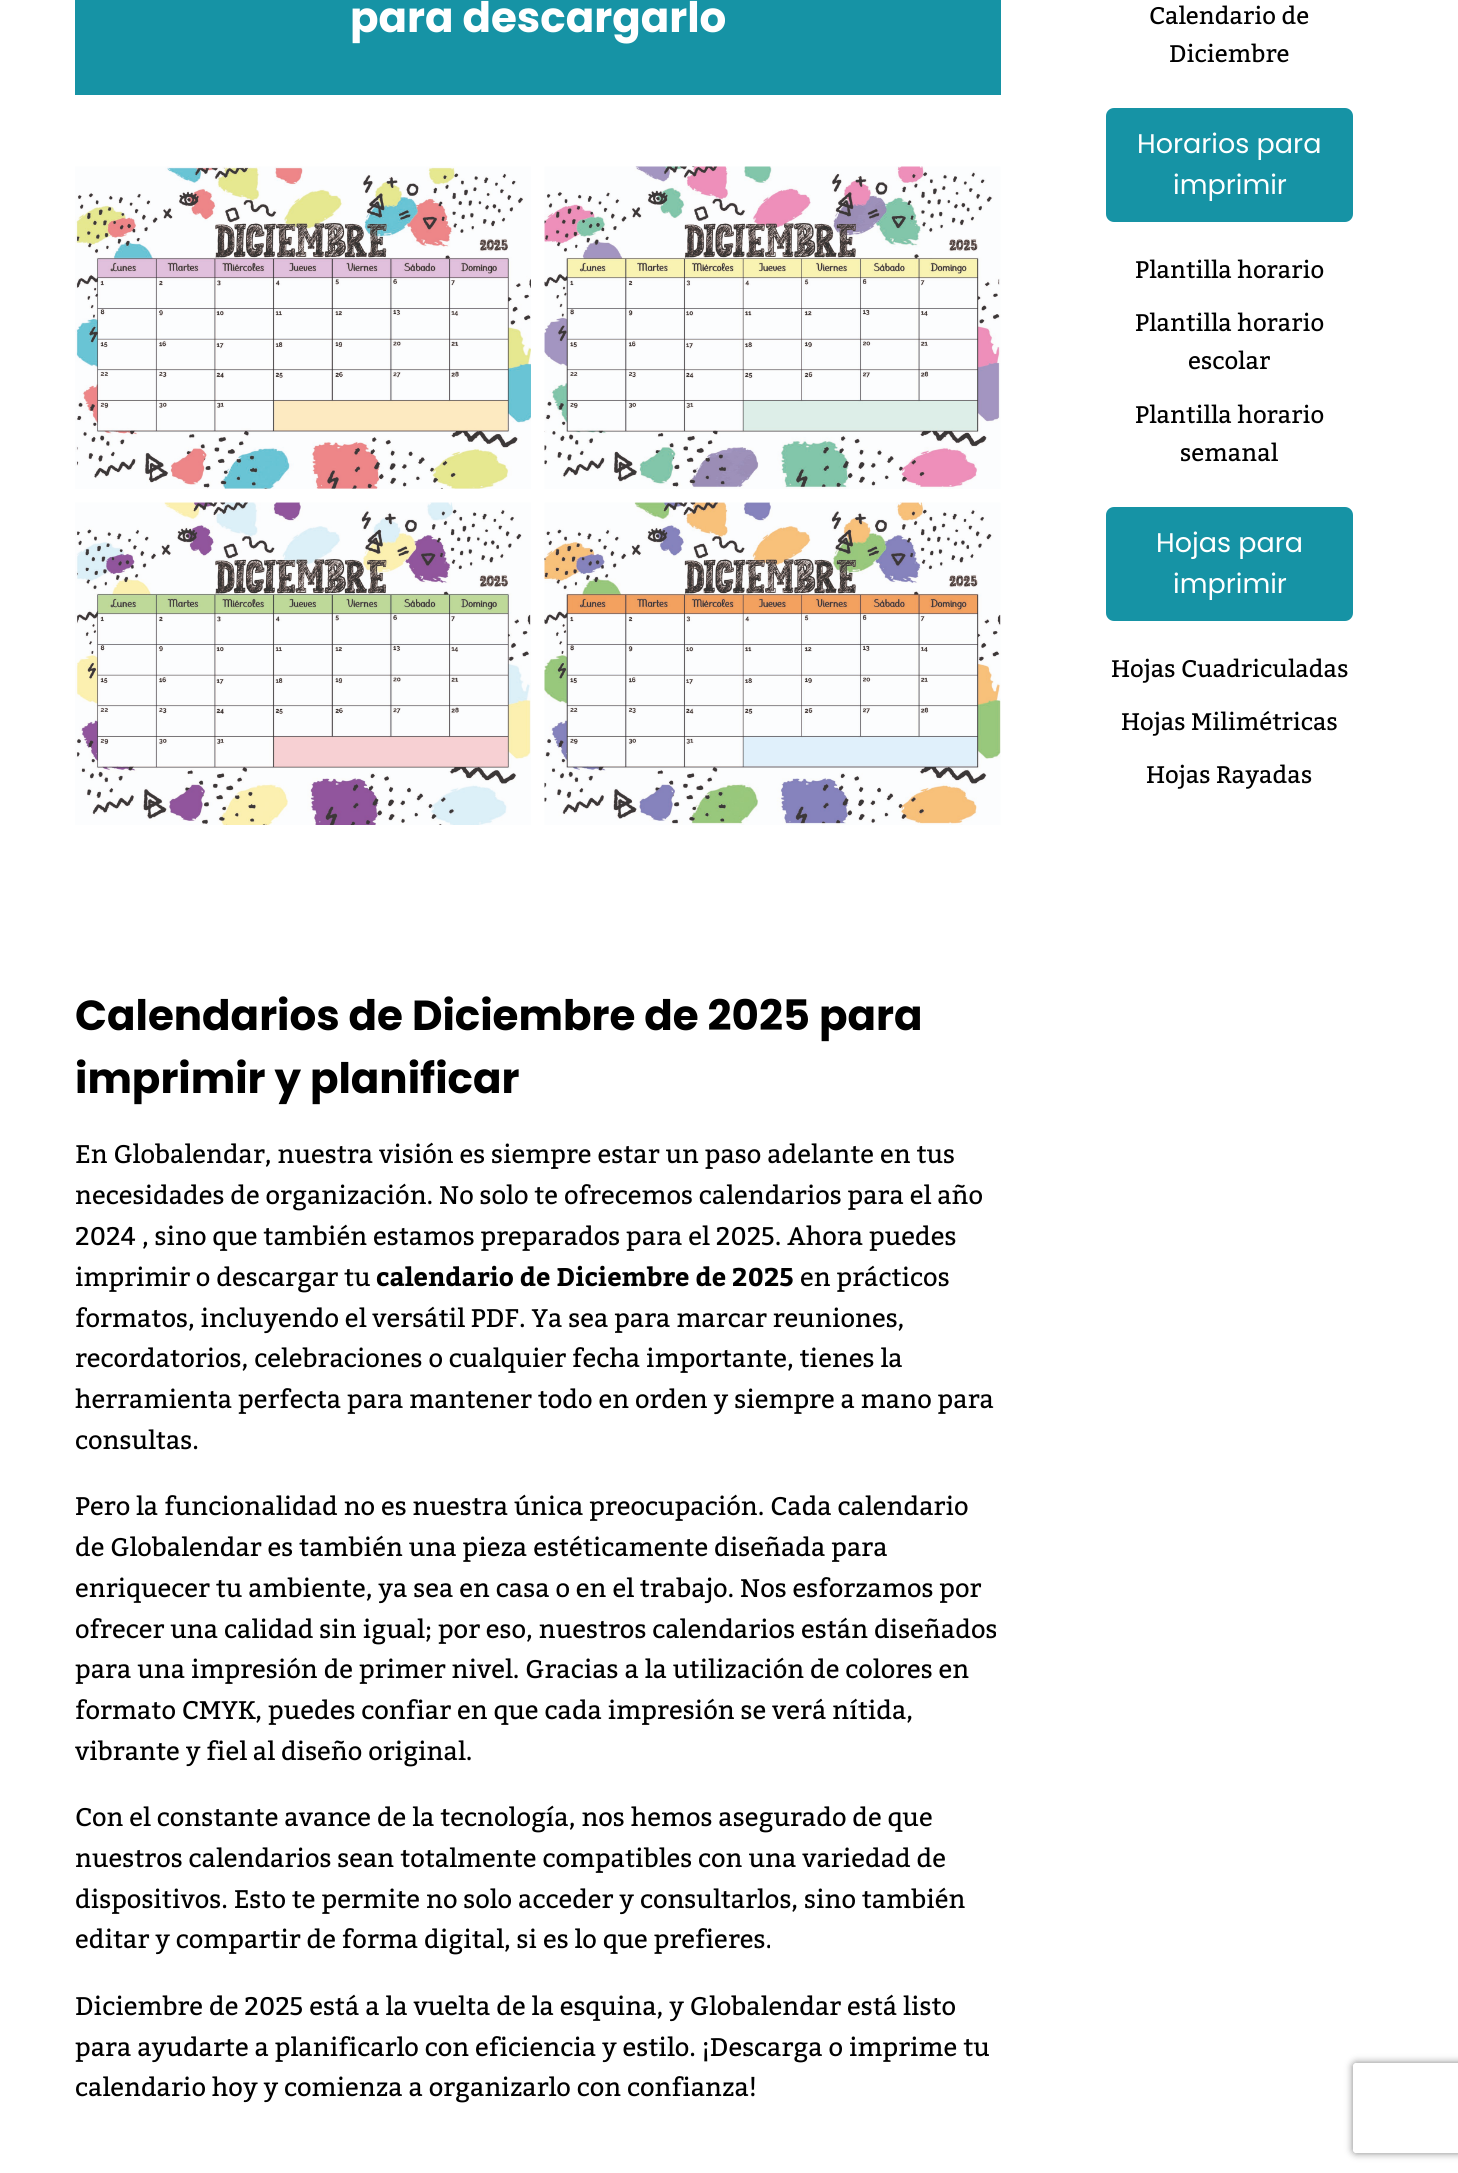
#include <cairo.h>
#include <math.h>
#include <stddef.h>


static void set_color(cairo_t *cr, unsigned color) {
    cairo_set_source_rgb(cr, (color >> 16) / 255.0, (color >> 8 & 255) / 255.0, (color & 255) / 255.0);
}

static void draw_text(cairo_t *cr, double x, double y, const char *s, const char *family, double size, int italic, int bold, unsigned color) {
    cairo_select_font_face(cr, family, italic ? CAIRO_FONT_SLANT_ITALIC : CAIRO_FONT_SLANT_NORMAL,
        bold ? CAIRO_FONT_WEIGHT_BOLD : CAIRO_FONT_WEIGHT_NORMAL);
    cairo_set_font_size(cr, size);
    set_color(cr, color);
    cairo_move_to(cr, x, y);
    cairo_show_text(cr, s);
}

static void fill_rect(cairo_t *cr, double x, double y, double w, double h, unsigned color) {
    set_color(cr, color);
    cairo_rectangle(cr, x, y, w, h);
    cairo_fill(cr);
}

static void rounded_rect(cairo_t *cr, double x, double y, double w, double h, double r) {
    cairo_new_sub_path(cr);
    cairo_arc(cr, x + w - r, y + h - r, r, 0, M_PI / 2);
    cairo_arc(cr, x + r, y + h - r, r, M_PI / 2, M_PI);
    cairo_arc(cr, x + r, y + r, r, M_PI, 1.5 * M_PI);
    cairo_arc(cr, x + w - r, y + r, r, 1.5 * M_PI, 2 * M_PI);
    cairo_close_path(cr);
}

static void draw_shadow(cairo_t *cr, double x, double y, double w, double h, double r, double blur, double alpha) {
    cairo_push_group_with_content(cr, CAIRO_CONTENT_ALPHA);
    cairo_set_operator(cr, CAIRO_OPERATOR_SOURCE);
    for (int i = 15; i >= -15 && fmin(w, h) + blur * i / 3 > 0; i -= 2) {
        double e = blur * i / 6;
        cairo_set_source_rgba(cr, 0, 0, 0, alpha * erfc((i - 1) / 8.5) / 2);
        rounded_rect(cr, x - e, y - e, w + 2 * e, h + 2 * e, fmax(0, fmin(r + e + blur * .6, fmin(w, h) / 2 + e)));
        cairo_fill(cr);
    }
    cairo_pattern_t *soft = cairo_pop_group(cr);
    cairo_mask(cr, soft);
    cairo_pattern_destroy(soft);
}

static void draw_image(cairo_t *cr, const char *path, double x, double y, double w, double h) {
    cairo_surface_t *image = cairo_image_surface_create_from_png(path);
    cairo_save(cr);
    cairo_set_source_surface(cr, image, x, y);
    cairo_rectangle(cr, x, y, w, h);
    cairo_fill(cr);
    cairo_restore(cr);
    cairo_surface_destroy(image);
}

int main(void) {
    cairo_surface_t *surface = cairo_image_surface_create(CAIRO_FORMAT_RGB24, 1458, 2173);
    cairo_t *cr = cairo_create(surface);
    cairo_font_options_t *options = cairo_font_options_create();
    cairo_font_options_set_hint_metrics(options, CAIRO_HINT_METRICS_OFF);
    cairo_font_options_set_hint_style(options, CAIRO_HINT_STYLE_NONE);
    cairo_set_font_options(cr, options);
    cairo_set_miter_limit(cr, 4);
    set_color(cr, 0xFFFFFF);
    cairo_paint(cr);
    fill_rect(cr, 75, 0, 926, 95, 0x1693A5);
    draw_text(cr, 350, 32, "para descargarlo", "Poppins", 42, 0, 1, 0xFFFFFF);
    draw_image(cr, "assets/img1.png", 75, 166, 456, 323);
    draw_image(cr, "assets/img2.png", 544, 166, 457, 323);
    draw_image(cr, "assets/img3.png", 75, 502, 456, 323);
    draw_image(cr, "assets/img4.png", 544, 502, 457, 323);
    draw_text(cr, 75, 1030, "Calendarios de Diciembre de 2025 para", "Poppins", 42, 0, 1, 0x000000);
    draw_text(cr, 75, 1093, "imprimir y planificar", "Poppins", 42, 0, 1, 0x000000);
    draw_text(cr, 75, 1163, "En Globalendar, nuestra visión es siempre estar un paso adelante en tus", "Kadwa", 25.5, 0, 0, 0x000000);
    draw_text(cr, 75, 1204, "necesidades de organización. No solo te ofrecemos calendarios para el año", "Kadwa", 25.5, 0, 0, 0x000000);
    draw_text(cr, 75, 1245, "2024 , sino que también estamos preparados para el 2025. Ahora puedes", "Kadwa", 25.5, 0, 0, 0x000000);
    draw_text(cr, 75, 1286, "imprimir o descargar tu", "Kadwa", 25.5, 0, 0, 0x000000);
    draw_text(cr, 376, 1286, "calendario de Diciembre de 2025", "Kadwa", 25.5, 0, 1, 0x000000);
    draw_text(cr, 800, 1286, "en prácticos", "Kadwa", 25.5, 0, 0, 0x000000);
    draw_text(cr, 75, 1327, "formatos, incluyendo el versátil PDF. Ya sea para marcar reuniones,", "Kadwa", 25.5, 0, 0, 0x000000);
    draw_text(cr, 75, 1367, "recordatorios, celebraciones o cualquier fecha importante, tienes la", "Kadwa", 25.5, 0, 0, 0x000000);
    draw_text(cr, 75, 1408, "herramienta perfecta para mantener todo en orden y siempre a mano para", "Kadwa", 25.5, 0, 0, 0x000000);
    draw_text(cr, 75, 1449, "consultas.", "Kadwa", 25.5, 0, 0, 0x000000);
    draw_text(cr, 75, 1515, "Pero la funcionalidad no es nuestra única preocupación. Cada calendario", "Kadwa", 25.5, 0, 0, 0x000000);
    draw_text(cr, 75, 1556, "de Globalendar es también una pieza estéticamente diseñada para", "Kadwa", 25.5, 0, 0, 0x000000);
    draw_text(cr, 75, 1597, "enriquecer tu ambiente, ya sea en casa o en el trabajo. Nos esforzamos por", "Kadwa", 25.5, 0, 0, 0x000000);
    draw_text(cr, 75, 1638, "ofrecer una calidad sin igual; por eso, nuestros calendarios están diseñados", "Kadwa", 25.5, 0, 0, 0x000000);
    draw_text(cr, 75, 1678, "para una impresión de primer nivel. Gracias a la utilización de colores en", "Kadwa", 25.5, 0, 0, 0x000000);
    draw_text(cr, 75, 1719, "formato CMYK, puedes confiar en que cada impresión se verá nítida,", "Kadwa", 25.5, 0, 0, 0x000000);
    draw_text(cr, 75, 1760, "vibrante y fiel al diseño original.", "Kadwa", 25.5, 0, 0, 0x000000);
    draw_text(cr, 75, 1826, "Con el constante avance de la tecnología, nos hemos asegurado de que", "Kadwa", 25.5, 0, 0, 0x000000);
    draw_text(cr, 75, 1867, "nuestros calendarios sean totalmente compatibles con una variedad de", "Kadwa", 25.5, 0, 0, 0x000000);
    draw_text(cr, 75, 1908, "dispositivos. Esto te permite no solo acceder y consultarlos, sino también", "Kadwa", 25.5, 0, 0, 0x000000);
    draw_text(cr, 75, 1948, "editar y compartir de forma digital, si es lo que prefieres.", "Kadwa", 25.5, 0, 0, 0x000000);
    draw_text(cr, 75, 2015, "Diciembre de 2025 está a la vuelta de la esquina, y Globalendar está listo", "Kadwa", 25.5, 0, 0, 0x000000);
    draw_text(cr, 75, 2056, "para ayudarte a planificarlo con eficiencia y estilo. ¡Descarga o imprime tu", "Kadwa", 25.5, 0, 0, 0x000000);
    draw_text(cr, 75, 2096, "calendario hoy y comienza a organizarlo con confianza!", "Kadwa", 25.5, 0, 0, 0x000000);
    draw_text(cr, 1149, 24, "Calendario de", "Kadwa", 24, 0, 0, 0x000000);
    draw_text(cr, 1169, 62, "Diciembre", "Kadwa", 24, 0, 0, 0x000000);
    set_color(cr, 0x1693A5);
    rounded_rect(cr, 1106, 108, 247, 114, 8);
    cairo_fill(cr);
    draw_text(cr, 1137, 153, "Horarios para", "Poppins", 27, 0, 0, 0xFFFFFF);
    draw_text(cr, 1173, 194, "imprimir", "Poppins", 27, 0, 0, 0xFFFFFF);
    draw_text(cr, 1135, 278, "Plantilla horario", "Kadwa", 24, 0, 0, 0x000000);
    draw_text(cr, 1135, 331, "Plantilla horario", "Kadwa", 24, 0, 0, 0x000000);
    draw_text(cr, 1188, 369, "escolar", "Kadwa", 24, 0, 0, 0x000000);
    draw_text(cr, 1135, 423, "Plantilla horario", "Kadwa", 24, 0, 0, 0x000000);
    draw_text(cr, 1180, 461, "semanal", "Kadwa", 24, 0, 0, 0x000000);
    set_color(cr, 0x1693A5);
    rounded_rect(cr, 1106, 507, 247, 114, 8);
    cairo_fill(cr);
    draw_text(cr, 1156, 552, "Hojas para", "Poppins", 27, 0, 0, 0xFFFFFF);
    draw_text(cr, 1173, 593, "imprimir", "Poppins", 27, 0, 0, 0xFFFFFF);
    draw_text(cr, 1111, 677, "Hojas Cuadriculadas", "Kadwa", 24, 0, 0, 0x000000);
    draw_text(cr, 1121, 730, "Hojas Milimétricas", "Kadwa", 24, 0, 0, 0x000000);
    draw_text(cr, 1146, 783, "Hojas Rayadas", "Kadwa", 24, 0, 0, 0x000000);
    cairo_save(cr);
    cairo_set_fill_rule(cr, CAIRO_FILL_RULE_EVEN_ODD);
    cairo_new_path(cr);
    cairo_move_to(cr, 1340, 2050);
    cairo_line_to(cr, 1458, 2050);
    cairo_line_to(cr, 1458, 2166);
    cairo_line_to(cr, 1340, 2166);
    cairo_close_path(cr);
    cairo_move_to(cr, 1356, 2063);
    cairo_line_to(cr, 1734, 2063);
    cairo_curve_to(cr, 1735.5, 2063, 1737, 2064.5, 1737, 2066);
    cairo_line_to(cr, 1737, 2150);
    cairo_curve_to(cr, 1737, 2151.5, 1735.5, 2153, 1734, 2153);
    cairo_line_to(cr, 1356, 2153);
    cairo_curve_to(cr, 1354.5, 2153, 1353, 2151.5, 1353, 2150);
    cairo_line_to(cr, 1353, 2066);
    cairo_curve_to(cr, 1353, 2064.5, 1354.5, 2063, 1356, 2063);
    cairo_close_path(cr);
    cairo_clip(cr);
    set_color(cr, 0x808080);
    draw_shadow(cr, 1353, 2063, 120, 90, 3, 4, 1);
    cairo_restore(cr);
    cairo_surface_write_to_png(surface, "output.png");
    cairo_font_options_destroy(options);
    cairo_destroy(cr);
    cairo_surface_destroy(surface);
    return 0;
}
